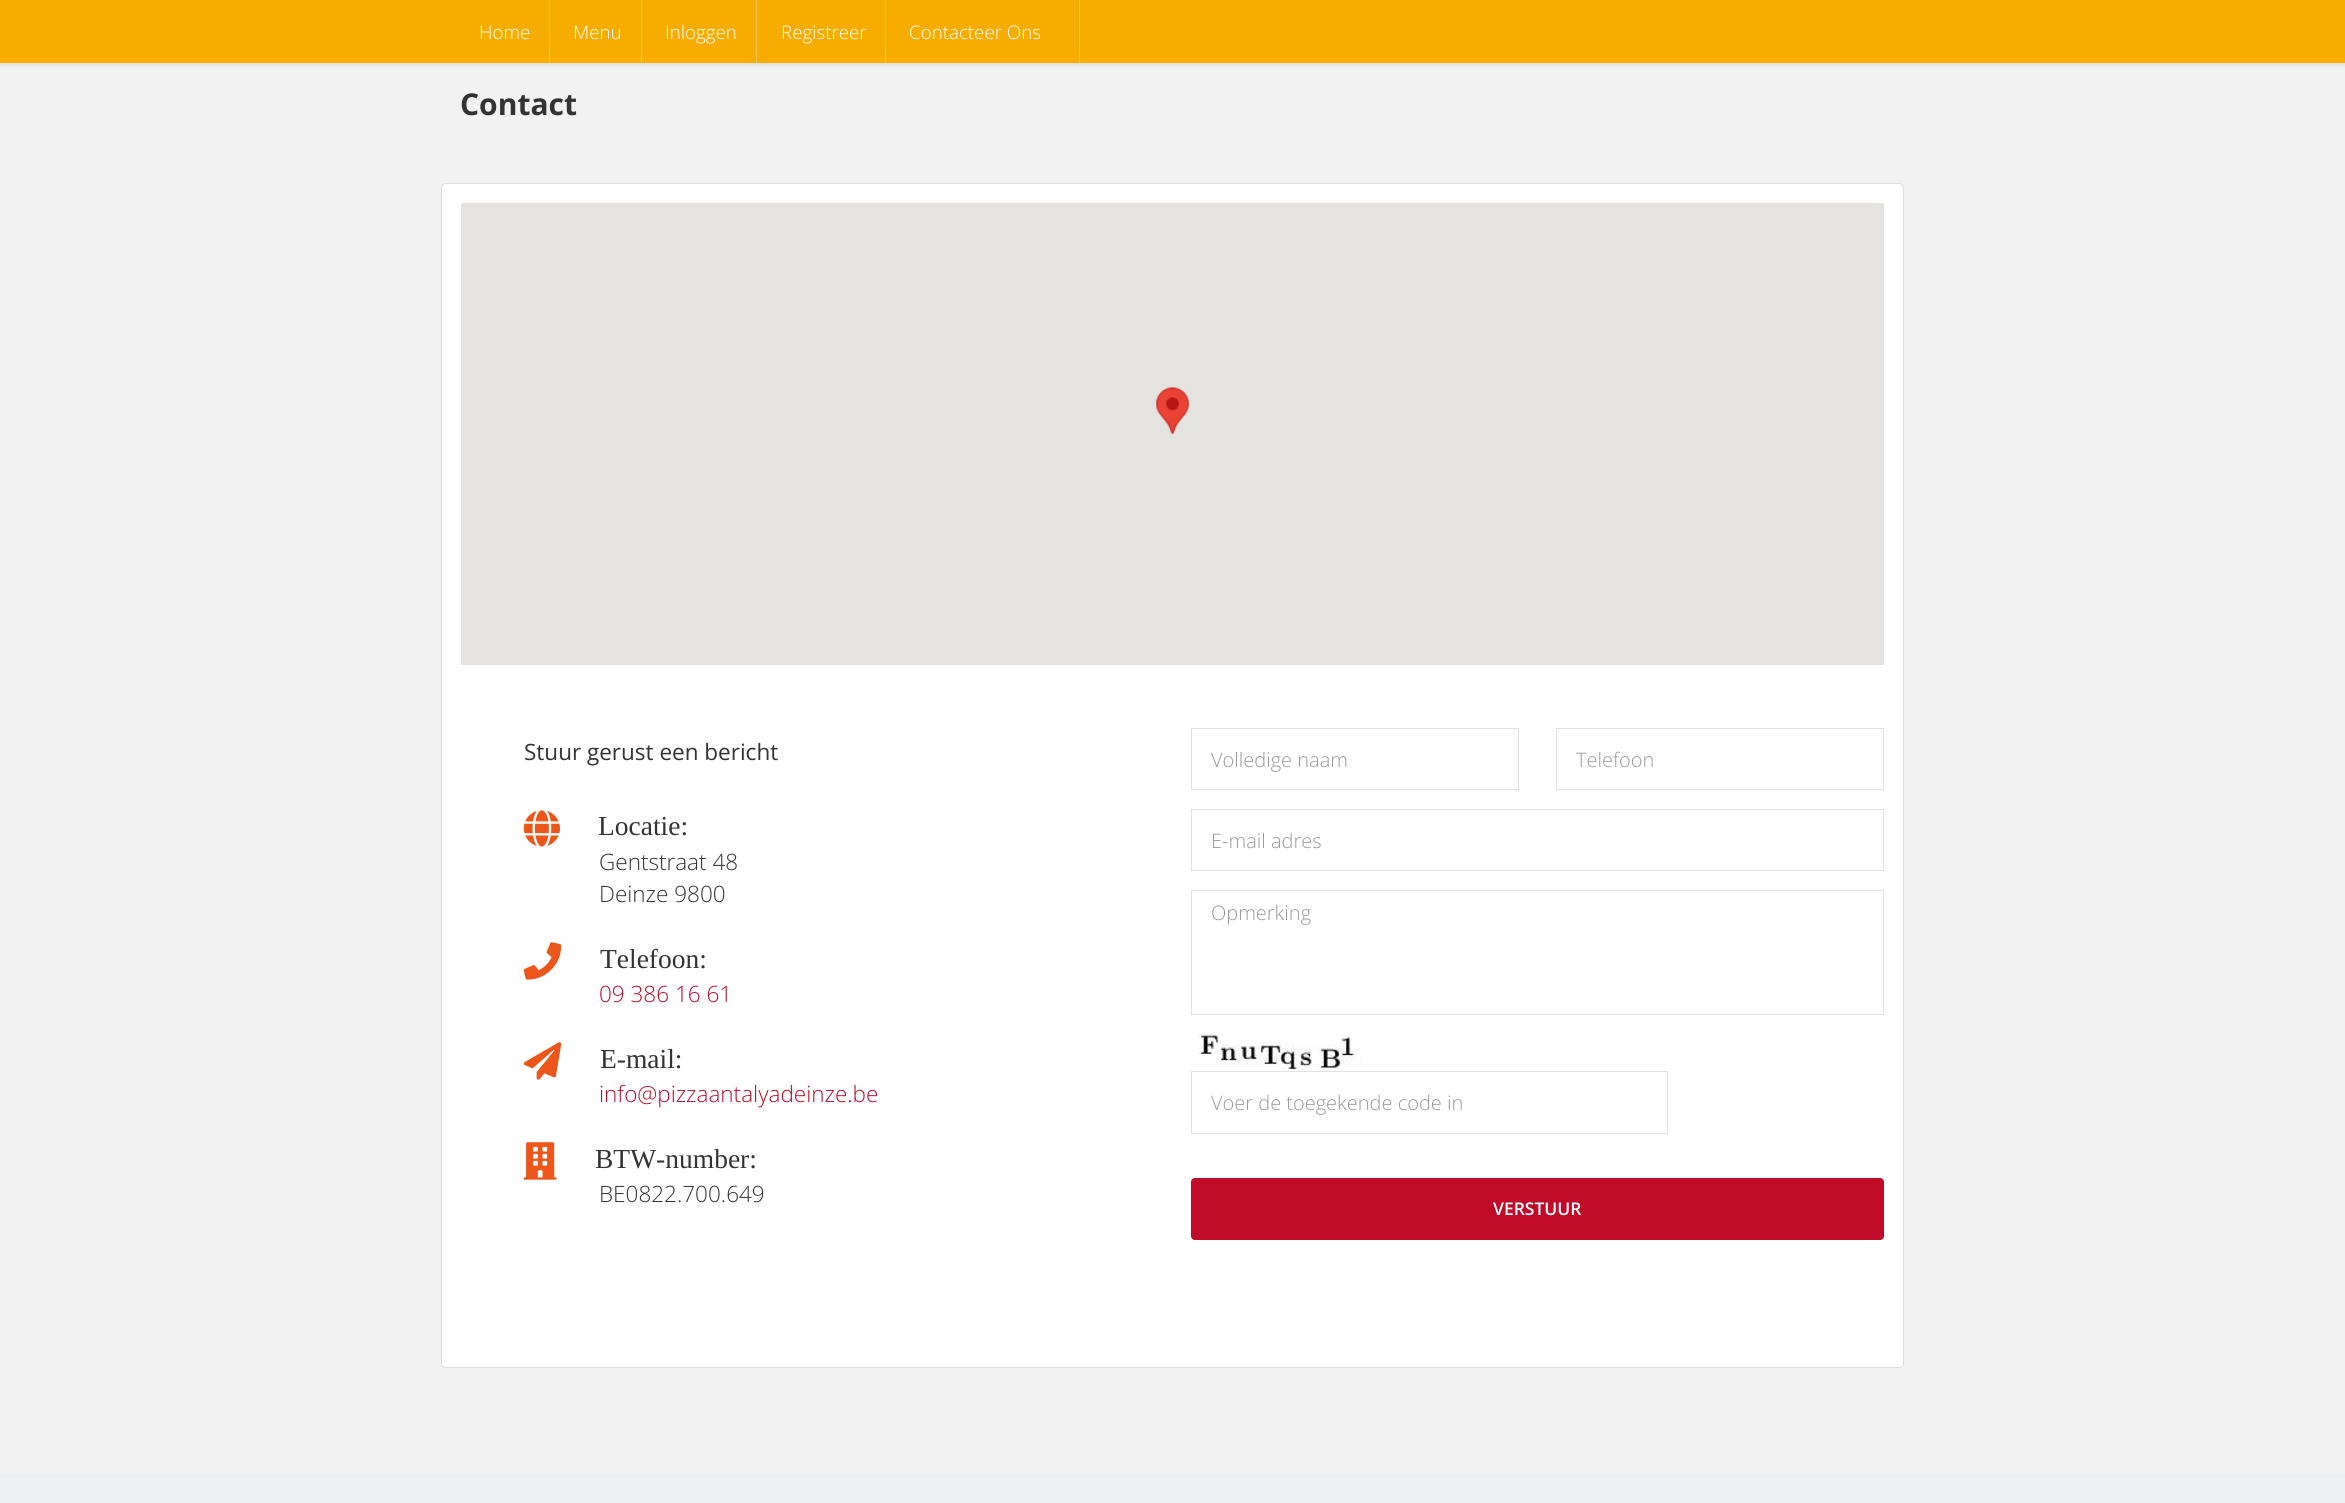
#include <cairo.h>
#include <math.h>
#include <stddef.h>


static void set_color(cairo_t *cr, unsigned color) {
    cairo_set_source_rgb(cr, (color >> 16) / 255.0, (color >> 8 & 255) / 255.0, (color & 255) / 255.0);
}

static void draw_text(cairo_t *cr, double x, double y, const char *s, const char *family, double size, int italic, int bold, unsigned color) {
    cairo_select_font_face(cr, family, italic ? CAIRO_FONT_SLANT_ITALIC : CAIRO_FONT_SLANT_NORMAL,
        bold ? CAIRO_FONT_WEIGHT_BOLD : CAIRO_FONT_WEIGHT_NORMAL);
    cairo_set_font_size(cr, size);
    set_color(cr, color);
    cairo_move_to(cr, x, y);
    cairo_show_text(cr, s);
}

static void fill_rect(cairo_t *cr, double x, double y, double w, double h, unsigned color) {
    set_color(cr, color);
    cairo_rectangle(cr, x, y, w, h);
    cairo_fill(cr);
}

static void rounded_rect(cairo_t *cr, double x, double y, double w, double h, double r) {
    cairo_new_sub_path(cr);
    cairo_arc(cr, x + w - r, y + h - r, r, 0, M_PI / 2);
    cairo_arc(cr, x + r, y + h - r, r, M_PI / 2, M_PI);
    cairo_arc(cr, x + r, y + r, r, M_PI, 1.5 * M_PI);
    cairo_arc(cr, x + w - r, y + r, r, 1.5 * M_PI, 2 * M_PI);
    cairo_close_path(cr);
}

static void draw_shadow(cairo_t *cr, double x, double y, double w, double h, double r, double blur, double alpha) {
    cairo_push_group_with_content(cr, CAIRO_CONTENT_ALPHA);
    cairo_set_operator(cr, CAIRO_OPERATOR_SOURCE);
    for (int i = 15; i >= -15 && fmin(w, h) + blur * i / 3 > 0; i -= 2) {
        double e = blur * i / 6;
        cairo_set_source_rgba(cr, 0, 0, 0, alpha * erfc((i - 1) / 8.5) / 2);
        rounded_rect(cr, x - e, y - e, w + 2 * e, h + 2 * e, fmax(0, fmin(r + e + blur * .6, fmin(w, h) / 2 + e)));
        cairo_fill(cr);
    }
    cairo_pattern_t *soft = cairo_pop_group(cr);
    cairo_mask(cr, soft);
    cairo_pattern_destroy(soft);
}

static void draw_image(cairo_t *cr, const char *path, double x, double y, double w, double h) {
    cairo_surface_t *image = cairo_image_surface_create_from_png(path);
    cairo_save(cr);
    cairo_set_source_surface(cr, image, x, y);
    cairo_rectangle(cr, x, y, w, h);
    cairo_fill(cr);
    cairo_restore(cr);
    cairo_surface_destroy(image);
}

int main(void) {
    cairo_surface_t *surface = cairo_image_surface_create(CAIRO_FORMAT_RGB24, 2345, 1503);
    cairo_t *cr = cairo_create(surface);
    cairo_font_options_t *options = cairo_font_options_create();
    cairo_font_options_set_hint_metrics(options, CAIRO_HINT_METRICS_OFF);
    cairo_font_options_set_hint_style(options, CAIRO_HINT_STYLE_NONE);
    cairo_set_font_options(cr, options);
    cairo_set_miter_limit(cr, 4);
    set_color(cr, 0xF2F2F2);
    cairo_paint(cr);
    set_color(cr, 0x000000);
    draw_shadow(cr, 0, 3, 2345, 62, 0, 2, 0.1);
    fill_rect(cr, 0, 0, 2345, 63, 0xF7AC00);
    fill_rect(cr, 549, 0, 1, 63, 0xF9C54D);
    draw_text(cr, 479, 39, "Home", "Open Sans Light", 18.75, 0, 0, 0xFFFFFF);
    fill_rect(cr, 641, 0, 1, 63, 0xF9C54D);
    draw_text(cr, 573, 39, "Menu", "Open Sans Light", 18.75, 0, 0, 0xFFFFFF);
    fill_rect(cr, 756, 0, 1, 63, 0xF9C54D);
    draw_text(cr, 665, 39, "Inloggen", "Open Sans Light", 18.75, 0, 0, 0xFFFFFF);
    fill_rect(cr, 885, 0, 1, 63, 0xF9C54D);
    draw_text(cr, 781, 39, "Registreer", "Open Sans Light", 18.75, 0, 0, 0xFFFFFF);
    draw_text(cr, 909, 39, "Contacteer Ons", "Open Sans Light", 18.75, 0, 0, 0xFFFFFF);
    fill_rect(cr, 1079, 0, 1, 63, 0xF9C54D);
    draw_text(cr, 460, 115, "Contact", "Open Sans", 30, 0, 1, 0x333333);
    set_color(cr, 0xFFFFFF);
    rounded_rect(cr, 441.5, 183.5, 1462, 1184, 4.5);
    cairo_fill_preserve(cr);
    set_color(cr, 0xDDDDDD);
    cairo_set_line_width(cr, 1);
    cairo_stroke(cr);
    fill_rect(cr, 461, 203, 1423, 462, 0xE5E3DF);
    draw_image(cr, "assets/img1.png", 1156, 387, 33, 47);
    draw_text(cr, 524, 760, "Stuur gerust een bericht", "Open Sans", 22.5, 0, 0, 0x333333);
    draw_image(cr, "assets/img2.png", 523, 810, 38, 37);
    draw_text(cr, 598, 835, "Locatie:", "Liberation Serif", 27.5, 0, 0, 0x333333);
    draw_text(cr, 599, 870, "Gentstraat 48", "Open Sans Light", 22.5, 0, 0, 0x333333);
    draw_text(cr, 599, 902, "Deinze 9800", "Open Sans Light", 22.5, 0, 0, 0x333333);
    draw_image(cr, "assets/img3.png", 523, 942, 39, 38);
    draw_text(cr, 600, 968, "Telefoon:", "Liberation Serif", 27.5, 0, 0, 0x333333);
    draw_text(cr, 599, 1002, "09 386 16 61", "Open Sans Light", 22.5, 0, 0, 0xC00A27);
    draw_image(cr, "assets/img4.png", 523, 1042, 39, 38);
    draw_text(cr, 600, 1068, "E-mail:", "Liberation Serif", 27.5, 0, 0, 0x333333);
    draw_text(cr, 599, 1102, "info@pizzaantalyadeinze.be", "Open Sans Light", 22.5, 0, 0, 0xC00A27);
    draw_image(cr, "assets/img5.png", 523, 1142, 34, 38);
    draw_text(cr, 595, 1168, "BTW-number:", "Liberation Serif", 27.5, 0, 0, 0x333333);
    draw_text(cr, 599, 1202, "BE0822.700.649", "Open Sans Light", 22.5, 0, 0, 0x333333);
    cairo_rectangle(cr, 1191.5, 728.5, 327, 61);
    set_color(cr, 0xE1E1E1);
    cairo_stroke(cr);
    draw_text(cr, 1211, 767, "Volledige naam", "Open Sans Light", 20, 0, 0, 0x999999);
    cairo_rectangle(cr, 1556.5, 728.5, 327, 61);
    set_color(cr, 0xE1E1E1);
    cairo_stroke(cr);
    draw_text(cr, 1576, 767, "Telefoon", "Open Sans Light", 20, 0, 0, 0x999999);
    cairo_rectangle(cr, 1191.5, 809.5, 692, 61);
    set_color(cr, 0xE1E1E1);
    cairo_stroke(cr);
    draw_text(cr, 1211, 848, "E-mail adres", "Open Sans Light", 20, 0, 0, 0x999999);
    cairo_rectangle(cr, 1191.5, 890.5, 692, 124);
    set_color(cr, 0xE1E1E1);
    cairo_stroke(cr);
    draw_text(cr, 1211, 920, "Opmerking", "Open Sans Light", 20, 0, 0, 0x999999);
    draw_image(cr, "assets/img6.png", 1198, 1034, 163, 37);
    cairo_rectangle(cr, 1191.5, 1071.5, 476, 62);
    set_color(cr, 0xE1E1E1);
    cairo_stroke(cr);
    draw_text(cr, 1211, 1110, "Voer de toegekende code in", "Open Sans Light", 20, 0, 0, 0x999999);
    set_color(cr, 0xC00A27);
    rounded_rect(cr, 1191.5, 1178.5, 692, 61, 3.5);
    cairo_fill_preserve(cr);
    cairo_stroke(cr);
    draw_text(cr, 1493, 1215, "VERSTUUR", "Open Sans SemiBold", 17.5, 0, 0, 0xFFFFFF);
    fill_rect(cr, 0, 1474, 2345, 29, 0xEDEFF1);
    cairo_surface_write_to_png(surface, "output.png");
    cairo_font_options_destroy(options);
    cairo_destroy(cr);
    cairo_surface_destroy(surface);
    return 0;
}
